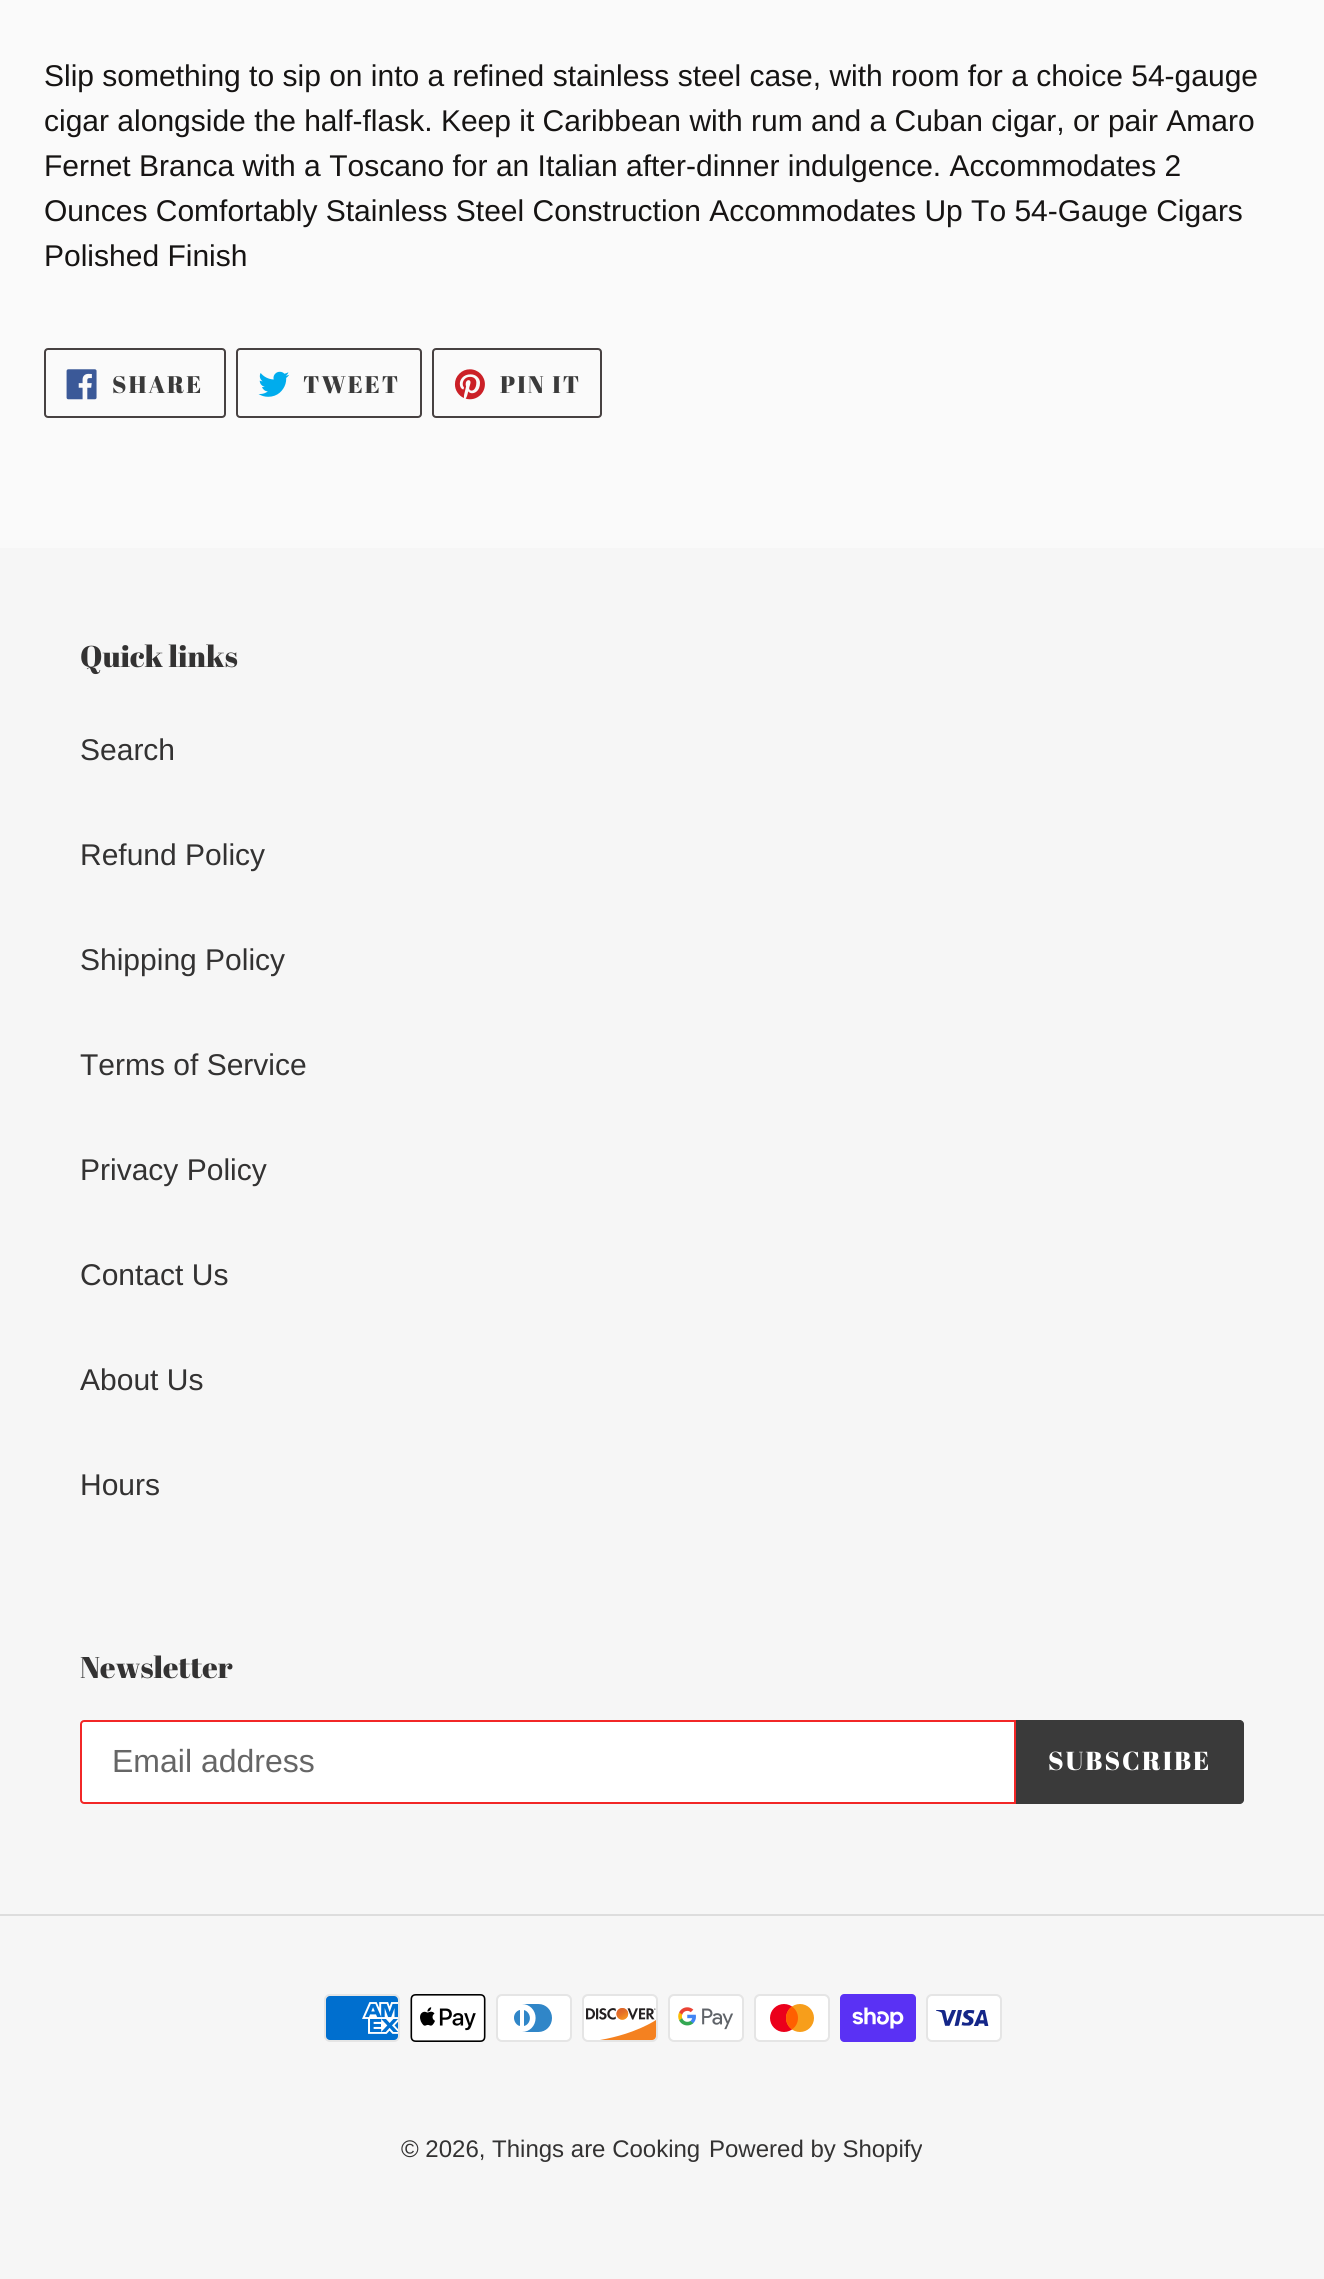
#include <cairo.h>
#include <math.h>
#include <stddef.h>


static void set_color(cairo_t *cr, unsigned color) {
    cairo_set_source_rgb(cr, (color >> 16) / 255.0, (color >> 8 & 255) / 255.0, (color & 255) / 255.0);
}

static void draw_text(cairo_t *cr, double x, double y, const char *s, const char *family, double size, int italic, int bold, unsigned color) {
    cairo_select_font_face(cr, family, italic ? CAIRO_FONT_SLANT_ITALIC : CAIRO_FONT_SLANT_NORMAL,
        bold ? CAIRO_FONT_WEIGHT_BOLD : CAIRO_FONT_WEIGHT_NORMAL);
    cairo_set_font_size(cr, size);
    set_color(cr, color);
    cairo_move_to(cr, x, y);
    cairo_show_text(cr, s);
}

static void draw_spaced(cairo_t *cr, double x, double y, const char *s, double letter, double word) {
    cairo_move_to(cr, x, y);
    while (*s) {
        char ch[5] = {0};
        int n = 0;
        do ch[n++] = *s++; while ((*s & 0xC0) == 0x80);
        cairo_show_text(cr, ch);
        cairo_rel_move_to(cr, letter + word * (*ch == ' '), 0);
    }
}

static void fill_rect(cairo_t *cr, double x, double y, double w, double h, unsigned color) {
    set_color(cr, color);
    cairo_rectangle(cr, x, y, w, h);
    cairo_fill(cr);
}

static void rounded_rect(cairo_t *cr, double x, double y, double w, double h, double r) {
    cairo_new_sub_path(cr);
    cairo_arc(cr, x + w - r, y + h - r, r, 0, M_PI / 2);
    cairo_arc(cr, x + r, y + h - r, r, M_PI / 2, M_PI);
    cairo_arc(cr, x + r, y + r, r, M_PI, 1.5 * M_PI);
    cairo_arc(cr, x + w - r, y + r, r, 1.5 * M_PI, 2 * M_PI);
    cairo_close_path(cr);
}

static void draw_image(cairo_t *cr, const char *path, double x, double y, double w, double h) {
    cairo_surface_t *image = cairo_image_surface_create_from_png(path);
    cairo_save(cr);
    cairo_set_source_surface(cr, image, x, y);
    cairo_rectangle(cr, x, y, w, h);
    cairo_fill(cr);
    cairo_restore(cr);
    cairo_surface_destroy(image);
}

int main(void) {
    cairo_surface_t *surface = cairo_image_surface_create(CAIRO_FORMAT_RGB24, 1324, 2279);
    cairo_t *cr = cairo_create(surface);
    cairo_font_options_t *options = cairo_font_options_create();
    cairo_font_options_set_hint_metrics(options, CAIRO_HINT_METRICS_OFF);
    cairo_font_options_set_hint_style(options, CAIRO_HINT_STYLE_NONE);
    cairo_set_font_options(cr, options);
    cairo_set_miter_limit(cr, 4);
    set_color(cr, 0xFAFAFA);
    cairo_paint(cr);
    draw_text(cr, 44, 86, "Slip something to sip on into a refined stainless steel case, with room for a choice 54-gauge", "Liberation Sans", 30, 0, 0, 0x161413);
    draw_text(cr, 44, 131, "cigar alongside the half-flask. Keep it Caribbean with rum and a Cuban cigar, or pair Amaro", "Liberation Sans", 30, 0, 0, 0x161413);
    draw_text(cr, 44, 176, "Fernet Branca with a Toscano for an Italian after-dinner indulgence. Accommodates 2", "Liberation Sans", 30, 0, 0, 0x161413);
    draw_text(cr, 44, 221, "Ounces Comfortably Stainless Steel Construction Accommodates Up To 54-Gauge Cigars", "Liberation Sans", 30, 0, 0, 0x161413);
    draw_text(cr, 44, 266, "Polished Finish", "Liberation Sans", 30, 0, 0, 0x161413);
    rounded_rect(cr, 45, 349, 180, 68, 3);
    set_color(cr, 0x474141);
    cairo_stroke(cr);
    draw_image(cr, "assets/img1.png", 66, 369, 31, 31);
    cairo_select_font_face(cr, "Abril Fatface", CAIRO_FONT_SLANT_NORMAL, CAIRO_FONT_WEIGHT_NORMAL);
    cairo_set_font_size(cr, 24);
    set_color(cr, 0x3A3A3A);
    draw_spaced(cr, 112, 393, "SHARE", 2, 0);
    rounded_rect(cr, 237, 349, 184, 68, 3);
    set_color(cr, 0x474141);
    cairo_stroke(cr);
    draw_image(cr, "assets/img2.png", 258, 371, 32, 26);
    set_color(cr, 0x3A3A3A);
    draw_spaced(cr, 303, 393, "TWEET", 2, 0);
    rounded_rect(cr, 433, 349, 168, 68, 3);
    set_color(cr, 0x474141);
    cairo_stroke(cr);
    draw_image(cr, "assets/img3.png", 454, 369, 31, 31);
    set_color(cr, 0x3A3A3A);
    draw_spaced(cr, 500, 393, "PIN IT", 2, 0);
    fill_rect(cr, 0, 548, 1324, 1731, 0xF6F6F6);
    draw_text(cr, 80, 667, "Quick links", "Abril Fatface", 30, 0, 0, 0x333232);
    draw_text(cr, 80, 760, "Search", "Liberation Sans", 30, 0, 0, 0x333232);
    draw_text(cr, 80, 865, "Refund Policy", "Liberation Sans", 30, 0, 0, 0x333232);
    draw_text(cr, 80, 970, "Shipping Policy", "Liberation Sans", 30, 0, 0, 0x333232);
    draw_text(cr, 80, 1075, "Terms of Service", "Liberation Sans", 30, 0, 0, 0x333232);
    draw_text(cr, 80, 1180, "Privacy Policy", "Liberation Sans", 30, 0, 0, 0x333232);
    draw_text(cr, 80, 1285, "Contact Us", "Liberation Sans", 30, 0, 0, 0x333232);
    draw_text(cr, 80, 1390, "About Us", "Liberation Sans", 30, 0, 0, 0x333232);
    draw_text(cr, 80, 1495, "Hours", "Liberation Sans", 30, 0, 0, 0x333232);
    draw_text(cr, 80, 1678, "Newsletter", "Abril Fatface", 30, 0, 0, 0x333232);
    set_color(cr, 0xFFFFFF);
    cairo_new_path(cr);
    cairo_move_to(cr, 84, 1721);
    cairo_line_to(cr, 1015, 1721);
    cairo_line_to(cr, 1015, 1803);
    cairo_line_to(cr, 84, 1803);
    cairo_curve_to(cr, 82.5, 1803, 81, 1801.5, 81, 1800);
    cairo_line_to(cr, 81, 1724);
    cairo_curve_to(cr, 81, 1722.5, 82.5, 1721, 84, 1721);
    cairo_close_path(cr);
    cairo_fill_preserve(cr);
    set_color(cr, 0xF22727);
    cairo_stroke(cr);
    draw_text(cr, 112, 1772, "Email address", "Liberation Sans", 32, 0, 0, 0x666666);
    set_color(cr, 0x3A3A3A);
    cairo_new_path(cr);
    cairo_move_to(cr, 1016, 1720);
    cairo_line_to(cr, 1240, 1720);
    cairo_curve_to(cr, 1242, 1720, 1244, 1722, 1244, 1724);
    cairo_line_to(cr, 1244, 1800);
    cairo_curve_to(cr, 1244, 1802, 1242, 1804, 1240, 1804);
    cairo_line_to(cr, 1016, 1804);
    cairo_close_path(cr);
    cairo_fill(cr);
    cairo_select_font_face(cr, "Abril Fatface", CAIRO_FONT_SLANT_NORMAL, CAIRO_FONT_WEIGHT_NORMAL);
    cairo_set_font_size(cr, 26);
    set_color(cr, 0xFFFFFF);
    draw_spaced(cr, 1048, 1770, "SUBSCRIBE", 2, 0);
    fill_rect(cr, 0, 1914, 1324, 2, 0xDDDDDD);
    draw_image(cr, "assets/img4.png", 324, 1994, 76, 48);
    draw_image(cr, "assets/img5.png", 410, 1994, 76, 48);
    draw_image(cr, "assets/img6.png", 496, 1994, 76, 48);
    draw_image(cr, "assets/img7.png", 582, 1994, 76, 48);
    draw_image(cr, "assets/img8.png", 668, 1994, 76, 48);
    draw_image(cr, "assets/img9.png", 754, 1994, 76, 48);
    draw_image(cr, "assets/img10.png", 840, 1994, 76, 48);
    draw_image(cr, "assets/img11.png", 926, 1994, 76, 48);
    draw_text(cr, 401, 2157, "© 2026, Things are Cooking", "Liberation Sans", 24, 0, 0, 0x333232);
    draw_text(cr, 709, 2157, "Powered by Shopify", "Liberation Sans", 24, 0, 0, 0x333232);
    cairo_surface_write_to_png(surface, "output.png");
    cairo_font_options_destroy(options);
    cairo_destroy(cr);
    cairo_surface_destroy(surface);
    return 0;
}
